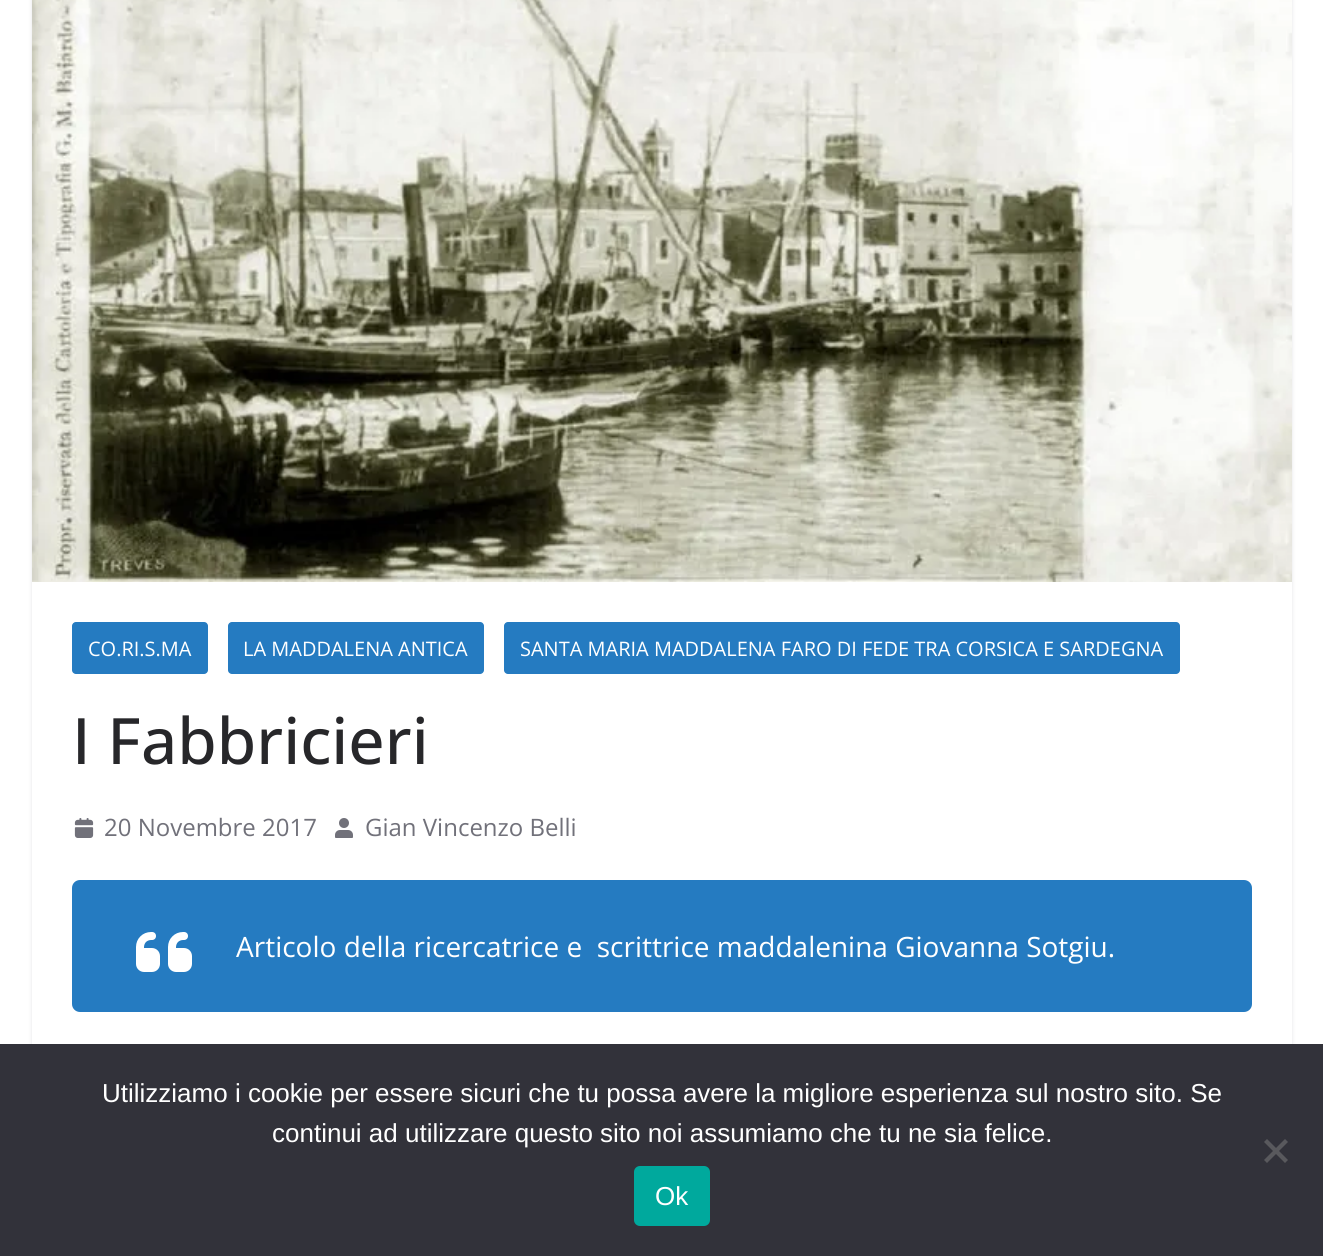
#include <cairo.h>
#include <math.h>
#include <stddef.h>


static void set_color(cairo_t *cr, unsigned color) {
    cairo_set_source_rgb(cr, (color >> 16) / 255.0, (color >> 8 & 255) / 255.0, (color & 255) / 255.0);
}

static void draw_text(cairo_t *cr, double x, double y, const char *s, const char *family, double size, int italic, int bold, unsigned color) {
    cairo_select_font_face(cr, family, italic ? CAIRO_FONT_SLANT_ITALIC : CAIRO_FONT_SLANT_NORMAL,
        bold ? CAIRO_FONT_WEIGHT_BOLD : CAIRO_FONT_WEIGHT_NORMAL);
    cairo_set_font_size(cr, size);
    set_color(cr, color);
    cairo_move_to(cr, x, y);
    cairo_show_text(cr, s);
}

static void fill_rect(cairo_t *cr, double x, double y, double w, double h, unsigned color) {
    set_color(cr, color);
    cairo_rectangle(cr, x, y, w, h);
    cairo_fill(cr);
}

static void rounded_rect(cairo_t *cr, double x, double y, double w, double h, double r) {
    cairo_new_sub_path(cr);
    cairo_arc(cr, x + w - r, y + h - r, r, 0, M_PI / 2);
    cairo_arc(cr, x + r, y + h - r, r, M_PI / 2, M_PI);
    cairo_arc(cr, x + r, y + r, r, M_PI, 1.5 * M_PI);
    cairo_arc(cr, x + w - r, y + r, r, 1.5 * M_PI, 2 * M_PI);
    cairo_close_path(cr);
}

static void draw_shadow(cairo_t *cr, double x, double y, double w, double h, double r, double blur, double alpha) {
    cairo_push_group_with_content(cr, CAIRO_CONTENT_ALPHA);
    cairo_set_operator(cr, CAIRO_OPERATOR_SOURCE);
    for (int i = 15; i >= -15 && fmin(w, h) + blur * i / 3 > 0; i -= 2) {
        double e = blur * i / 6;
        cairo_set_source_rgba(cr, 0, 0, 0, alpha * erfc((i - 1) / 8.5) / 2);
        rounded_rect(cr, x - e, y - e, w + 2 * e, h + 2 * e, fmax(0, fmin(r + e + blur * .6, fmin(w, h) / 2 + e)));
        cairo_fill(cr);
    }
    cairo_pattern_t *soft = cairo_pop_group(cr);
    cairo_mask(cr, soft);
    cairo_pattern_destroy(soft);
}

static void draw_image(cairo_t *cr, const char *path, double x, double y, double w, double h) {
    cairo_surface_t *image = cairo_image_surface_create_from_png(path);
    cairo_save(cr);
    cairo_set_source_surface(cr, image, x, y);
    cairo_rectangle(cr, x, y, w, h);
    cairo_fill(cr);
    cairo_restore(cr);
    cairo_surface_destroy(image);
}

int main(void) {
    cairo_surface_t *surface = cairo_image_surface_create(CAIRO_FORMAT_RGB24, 1323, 1256);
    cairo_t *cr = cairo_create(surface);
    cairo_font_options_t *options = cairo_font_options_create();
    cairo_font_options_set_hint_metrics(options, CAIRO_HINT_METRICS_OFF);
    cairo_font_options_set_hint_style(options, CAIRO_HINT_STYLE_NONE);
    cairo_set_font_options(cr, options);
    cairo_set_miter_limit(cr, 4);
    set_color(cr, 0xFFFFFF);
    cairo_paint(cr);
    cairo_save(cr);
    cairo_set_fill_rule(cr, CAIRO_FILL_RULE_EVEN_ODD);
    cairo_new_path(cr);
    cairo_move_to(cr, 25, 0);
    cairo_line_to(cr, 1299, 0);
    cairo_line_to(cr, 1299, 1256);
    cairo_line_to(cr, 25, 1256);
    cairo_close_path(cr);
    cairo_move_to(cr, 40, -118);
    cairo_line_to(cr, 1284, -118);
    cairo_curve_to(cr, 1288.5, -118, 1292, -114.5, 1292, -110);
    cairo_line_to(cr, 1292, 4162);
    cairo_curve_to(cr, 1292, 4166.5, 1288.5, 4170, 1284, 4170);
    cairo_line_to(cr, 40, 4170);
    cairo_curve_to(cr, 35.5, 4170, 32, 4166.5, 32, 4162);
    cairo_line_to(cr, 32, -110);
    cairo_curve_to(cr, 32, -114.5, 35.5, -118, 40, -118);
    cairo_close_path(cr);
    cairo_clip(cr);
    set_color(cr, 0xE4E4E7);
    draw_shadow(cr, 32, -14, 1260, 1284, 8, 2, 1);
    cairo_restore(cr);
    draw_image(cr, "assets/img1.png", 32, 0, 1260, 582);
    set_color(cr, 0x257BC1);
    rounded_rect(cr, 72, 622, 136, 52, 4);
    cairo_fill(cr);
    draw_text(cr, 88, 656, "CO.RI.S.MA", "Open Sans", 20, 0, 0, 0xFFFFFF);
    set_color(cr, 0x257BC1);
    rounded_rect(cr, 228, 622, 256, 52, 4);
    cairo_fill(cr);
    draw_text(cr, 243, 656, "LA MADDALENA ANTICA", "Open Sans", 20, 0, 0, 0xFFFFFF);
    set_color(cr, 0x257BC1);
    rounded_rect(cr, 504, 622, 676, 52, 4);
    cairo_fill(cr);
    draw_text(cr, 520, 656, "SANTA MARIA MADDALENA FARO DI FEDE TRA CORSICA E SARDEGNA", "Open Sans", 20, 0, 0, 0xFFFFFF);
    draw_text(cr, 72, 764, "I Fabbricieri", "Open Sans Medium", 64, 0, 0, 0x27272A);
    draw_image(cr, "assets/img2.png", 74, 818, 20, 20);
    draw_text(cr, 104, 836, "20 Novembre 2017", "Open Sans", 24, 0, 0, 0x71717A);
    draw_image(cr, "assets/img3.png", 335, 818, 18, 20);
    draw_text(cr, 365, 836, "Gian Vincenzo Belli", "Open Sans", 24, 0, 0, 0x71717A);
    set_color(cr, 0x257BC1);
    rounded_rect(cr, 72, 880, 1180, 132, 8);
    cairo_fill(cr);
    draw_image(cr, "assets/img4.png", 136, 932, 56, 40);
    draw_text(cr, 236, 957, "Articolo della ricercatrice e  scrittrice maddalenina Giovanna Sotgiu.", "Open Sans", 28, 0, 0, 0xFFFFFF);
    fill_rect(cr, 0, 1044, 1323, 212, 0x32323A);
    draw_text(cr, 102, 1102, "Utilizziamo i cookie per essere sicuri che tu possa avere la migliore esperienza sul nostro sito. Se", "Liberation Sans", 26, 0, 0, 0xFFFFFF);
    draw_text(cr, 272, 1142, "continui ad utilizzare questo sito noi assumiamo che tu ne sia felice.", "Liberation Sans", 26, 0, 0, 0xFFFFFF);
    set_color(cr, 0x59595D);
    cairo_new_path(cr);
    cairo_move_to(cr, 1285, 1139);
    cairo_line_to(cr, 1288, 1142);
    cairo_line_to(cr, 1267, 1163);
    cairo_line_to(cr, 1264, 1160);
    cairo_close_path(cr);
    cairo_fill(cr);
    cairo_new_path(cr);
    cairo_move_to(cr, 1264, 1142);
    cairo_line_to(cr, 1267, 1139);
    cairo_line_to(cr, 1288, 1160);
    cairo_line_to(cr, 1285, 1163);
    cairo_close_path(cr);
    cairo_fill(cr);
    set_color(cr, 0x00A99D);
    rounded_rect(cr, 634, 1166, 76, 60, 6);
    cairo_fill(cr);
    draw_text(cr, 655, 1205, "Ok", "Liberation Sans", 26, 0, 0, 0xFFFFFF);
    cairo_surface_write_to_png(surface, "output.png");
    cairo_font_options_destroy(options);
    cairo_destroy(cr);
    cairo_surface_destroy(surface);
    return 0;
}
